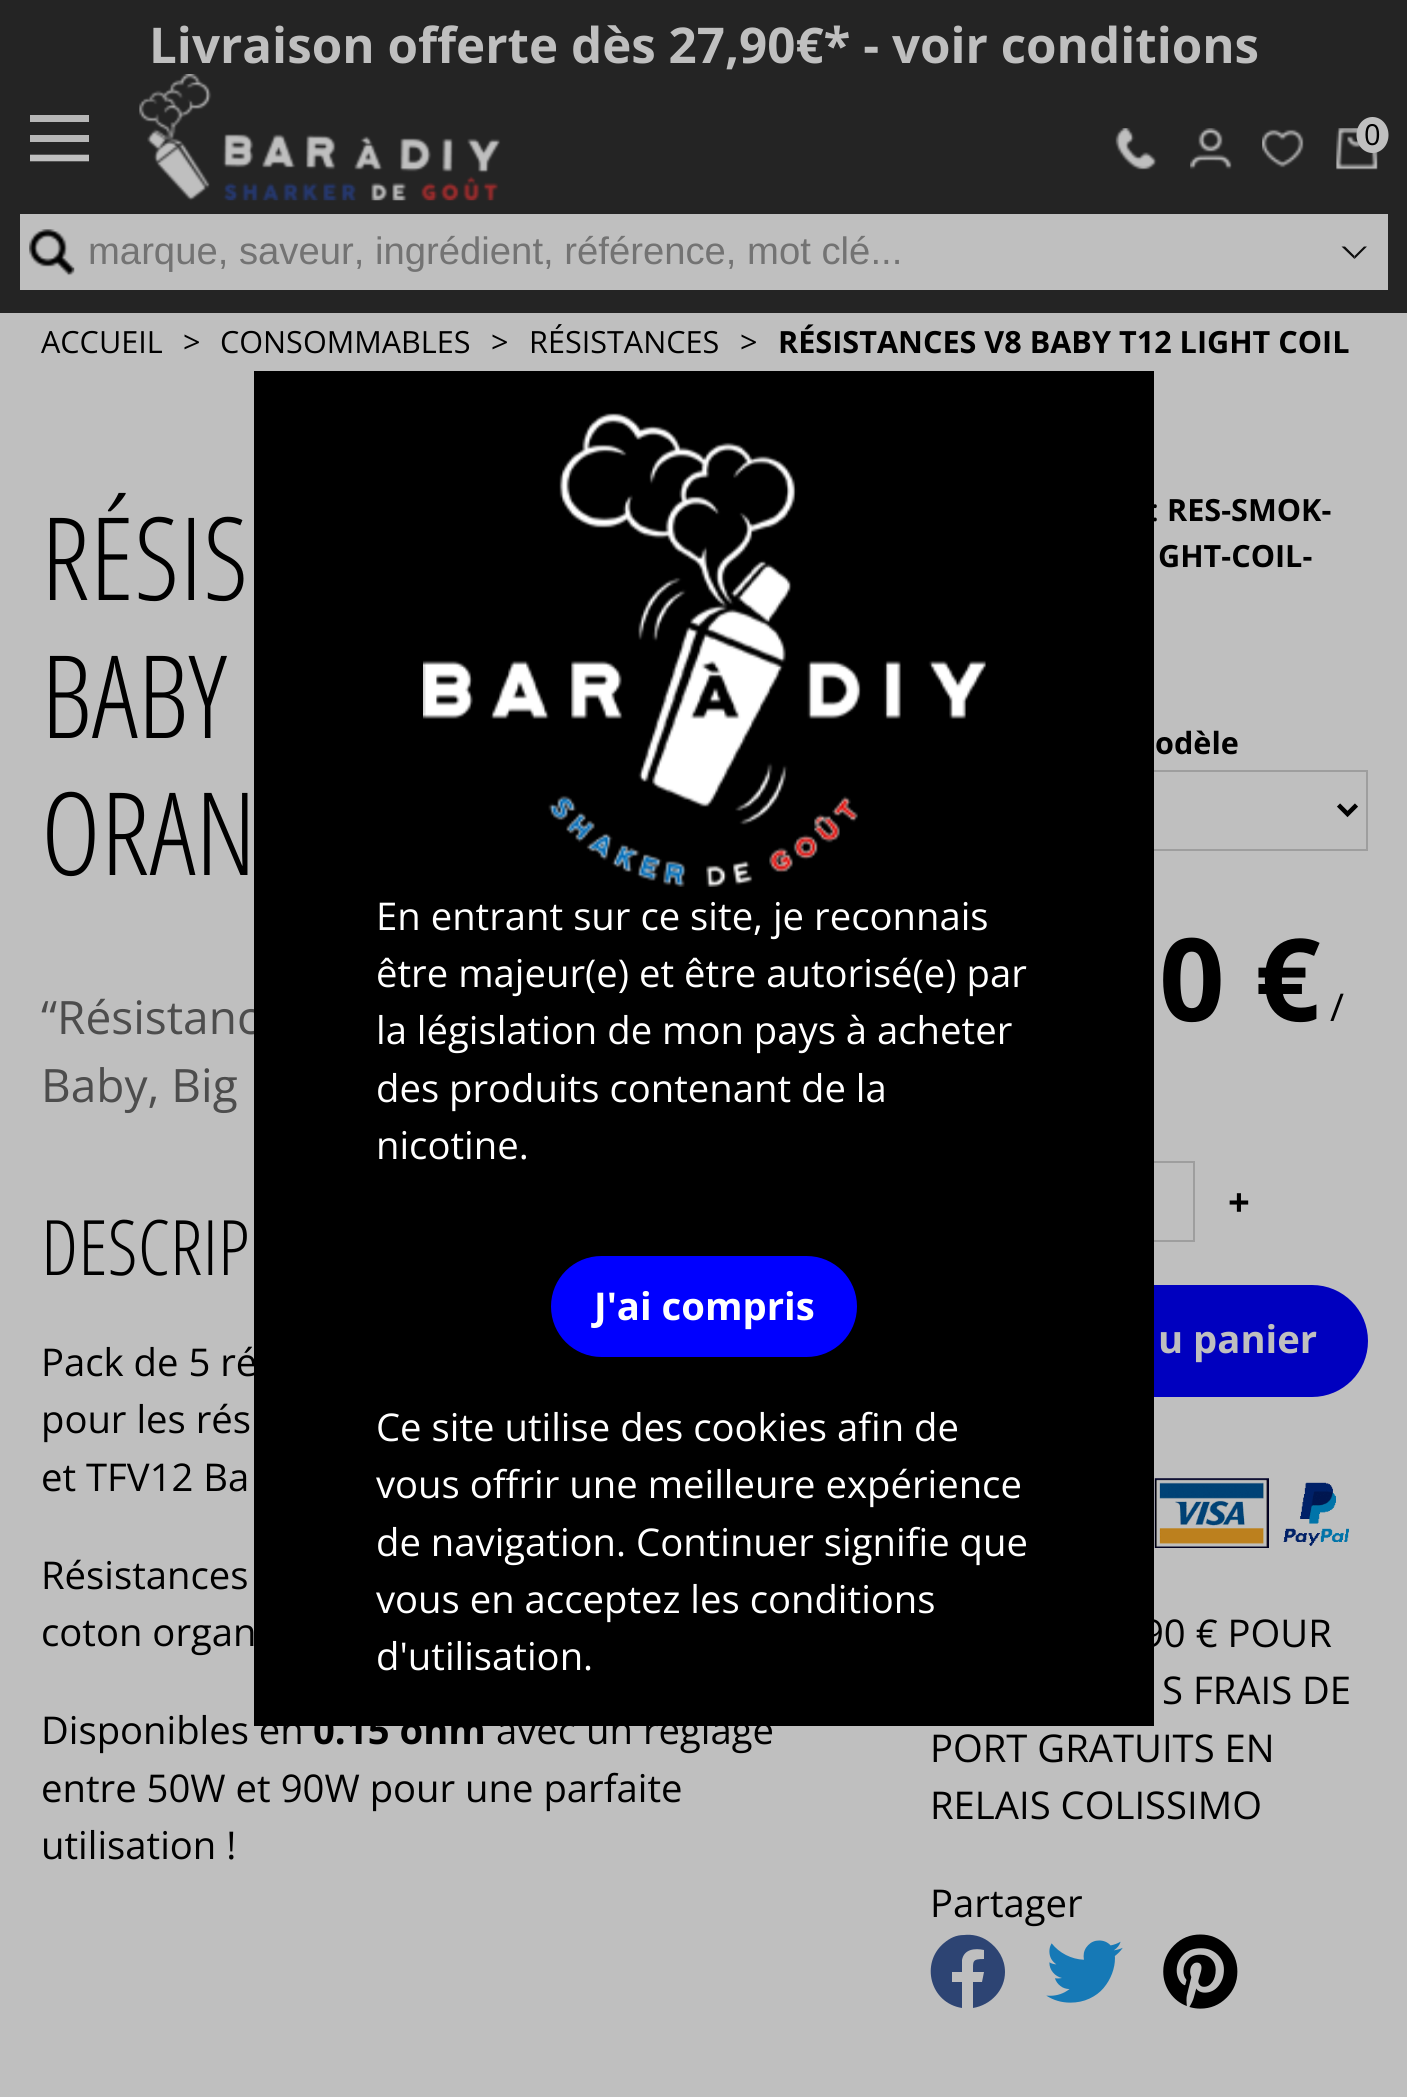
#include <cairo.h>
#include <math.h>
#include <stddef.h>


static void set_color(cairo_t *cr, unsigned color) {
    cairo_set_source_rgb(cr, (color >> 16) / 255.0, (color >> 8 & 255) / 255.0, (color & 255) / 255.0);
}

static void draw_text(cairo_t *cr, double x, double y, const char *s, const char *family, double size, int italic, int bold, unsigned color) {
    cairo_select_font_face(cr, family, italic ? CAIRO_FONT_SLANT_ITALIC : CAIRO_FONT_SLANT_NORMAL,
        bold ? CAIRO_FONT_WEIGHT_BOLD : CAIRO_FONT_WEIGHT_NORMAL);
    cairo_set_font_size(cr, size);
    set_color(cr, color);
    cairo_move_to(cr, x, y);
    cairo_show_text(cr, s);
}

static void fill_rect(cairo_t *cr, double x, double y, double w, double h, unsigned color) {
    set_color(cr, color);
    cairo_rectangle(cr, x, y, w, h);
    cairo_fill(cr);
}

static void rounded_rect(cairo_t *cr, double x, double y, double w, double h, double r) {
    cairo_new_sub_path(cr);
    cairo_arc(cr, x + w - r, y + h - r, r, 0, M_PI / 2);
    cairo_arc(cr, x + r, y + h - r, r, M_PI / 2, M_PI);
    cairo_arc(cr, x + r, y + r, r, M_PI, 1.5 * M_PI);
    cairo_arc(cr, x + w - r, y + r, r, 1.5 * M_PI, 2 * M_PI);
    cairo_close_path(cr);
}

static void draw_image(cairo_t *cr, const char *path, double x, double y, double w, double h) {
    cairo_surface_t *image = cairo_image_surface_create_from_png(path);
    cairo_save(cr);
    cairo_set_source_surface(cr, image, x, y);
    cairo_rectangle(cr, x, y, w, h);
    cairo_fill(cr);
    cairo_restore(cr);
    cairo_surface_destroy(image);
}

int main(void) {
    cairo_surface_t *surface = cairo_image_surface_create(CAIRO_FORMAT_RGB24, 1407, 2097);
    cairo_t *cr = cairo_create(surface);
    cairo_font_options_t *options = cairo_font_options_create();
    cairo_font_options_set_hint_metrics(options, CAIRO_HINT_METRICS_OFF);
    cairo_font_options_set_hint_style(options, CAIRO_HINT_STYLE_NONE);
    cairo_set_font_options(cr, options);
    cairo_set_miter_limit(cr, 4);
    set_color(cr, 0xBFBFBF);
    cairo_paint(cr);
    fill_rect(cr, 0, 0, 1407, 313, 0x242424);
    draw_text(cr, 149, 63, "Livraison offerte dès 27,90€* - voir conditions", "Open Sans", 49.3, 0, 1, 0xBFBFBF);
    fill_rect(cr, 30, 115, 59, 7, 0xB6B6B6);
    fill_rect(cr, 30, 135, 59, 7, 0xB6B6B6);
    cairo_new_path(cr);
    cairo_move_to(cr, 30, 158);
    cairo_line_to(cr, 89, 158);
    set_color(cr, 0xBFBFBF);
    cairo_set_line_width(cr, 6.6);
    cairo_stroke(cr);
    draw_image(cr, "assets/img1.png", 139, 74, 362, 127);
    draw_image(cr, "assets/img2.png", 1115, 128, 42, 42);
    draw_image(cr, "assets/img3.png", 1190, 128, 42, 42);
    draw_image(cr, "assets/img4.png", 1262, 129, 42, 39);
    draw_image(cr, "assets/img5.png", 1336, 128, 42, 42);
    cairo_new_path(cr);
    cairo_move_to(cr, 1372.5, 117);
    cairo_curve_to(cr, 1381.5, 117, 1388.5, 125, 1388.5, 135);
    cairo_curve_to(cr, 1388.5, 145, 1381.5, 153, 1372.5, 153);
    cairo_curve_to(cr, 1363.5, 153, 1356.5, 145, 1356.5, 135);
    cairo_curve_to(cr, 1356.5, 125, 1363.5, 117, 1372.5, 117);
    cairo_close_path(cr);
    cairo_fill(cr);
    draw_text(cr, 1364, 145, "0", "Open Sans", 29, 0, 0, 0x000000);
    fill_rect(cr, 20, 214, 1368, 76, 0xBFBFBF);
    draw_image(cr, "assets/img6.png", 29, 229, 46, 47);
    draw_text(cr, 88, 264, "marque, saveur, ingrédient, référence, mot clé...", "Liberation Sans", 38.25, 0, 0, 0x737373);
    set_color(cr, 0x0D0D0D);
    cairo_new_path(cr);
    cairo_move_to(cr, 1367, 246.5);
    cairo_line_to(cr, 1354.5, 259);
    cairo_line_to(cr, 1354.5, 256);
    cairo_line_to(cr, 1364, 246.5);
    cairo_close_path(cr);
    cairo_fill(cr);
    cairo_new_path(cr);
    cairo_move_to(cr, 1354.5, 259);
    cairo_line_to(cr, 1341.5, 246.5);
    cairo_line_to(cr, 1345, 246.5);
    cairo_line_to(cr, 1354.5, 256);
    cairo_close_path(cr);
    cairo_fill(cr);
    draw_text(cr, 41, 353, "ACCUEIL", "Open Sans", 30.6, 0, 0, 0x000000);
    draw_text(cr, 183, 353, ">", "Open Sans", 30.6, 0, 0, 0x000000);
    draw_text(cr, 220, 353, "CONSOMMABLES", "Open Sans", 30.6, 0, 0, 0x000000);
    draw_text(cr, 491, 353, ">", "Open Sans", 30.6, 0, 0, 0x000000);
    draw_text(cr, 529, 353, "RÉSISTANCES", "Open Sans", 30.6, 0, 0, 0x000000);
    draw_text(cr, 740, 353, ">", "Open Sans", 30.6, 0, 0, 0x000000);
    draw_text(cr, 778, 353, "RÉSISTANCES V8 BABY T12 LIGHT COIL", "Open Sans", 30.6, 0, 1, 0x000000);
    draw_text(cr, 41, 600, "RÉSIS", "Open Sans Light", 115, 0, 0, 0x000000);
    draw_text(cr, 41, 738, "BABY", "Open Sans Light", 115, 0, 0, 0x000000);
    draw_text(cr, 41, 875, "ORAN", "Open Sans Light", 115, 0, 0, 0x000000);
    draw_text(cr, 41, 1034, "“Résistanc", "Open Sans", 46, 0, 0, 0x4D4D4D);
    draw_text(cr, 41, 1102, "Baby, Big", "Open Sans", 46, 0, 0, 0x4D4D4D);
    draw_text(cr, 41, 1275, "DESCRIP", "Open Sans Light", 76.5, 0, 0, 0x000000);
    draw_text(cr, 41, 1376, "Pack de 5 ré", "Open Sans", 38.25, 0, 0, 0x000000);
    draw_text(cr, 41, 1433, "pour les rés", "Open Sans", 38.25, 0, 0, 0x000000);
    draw_text(cr, 41, 1491, "et TFV12 Ba", "Open Sans", 38.25, 0, 0, 0x000000);
    draw_text(cr, 41, 1589, "Résistances", "Open Sans", 38.25, 0, 0, 0x000000);
    draw_text(cr, 41, 1646, "coton organ", "Open Sans", 38.25, 0, 0, 0x000000);
    draw_text(cr, 41, 1744, "Disponibles en", "Open Sans", 38.25, 0, 0, 0x000000);
    draw_text(cr, 313, 1744, "0.15 ohm", "Open Sans", 38.25, 0, 1, 0x000000);
    draw_text(cr, 496, 1744, "avec un réglage", "Open Sans", 38.25, 0, 0, 0x000000);
    draw_text(cr, 41, 1802, "entre 50W et 90W pour une parfaite", "Open Sans", 38.25, 0, 0, 0x000000);
    draw_text(cr, 41, 1859, "utilisation !", "Open Sans", 38.25, 0, 0, 0x000000);
    draw_text(cr, 1151, 521, ":", "Open Sans", 30.6, 0, 0, 0x000000);
    draw_text(cr, 1167, 521, "RES-SMOK-", "Open Sans", 30.6, 0, 1, 0x000000);
    draw_text(cr, 1158, 567, "GHT-COIL-", "Open Sans", 30.6, 0, 1, 0x000000);
    draw_text(cr, 1155, 754, "odèle", "Open Sans", 30.6, 0, 1, 0x000000);
    cairo_rectangle(cr, 930, 771, 437, 79);
    set_color(cr, 0x9E9E9E);
    cairo_set_line_width(cr, 2);
    cairo_stroke(cr);
    cairo_new_path(cr);
    cairo_move_to(cr, 1338.5, 805);
    cairo_line_to(cr, 1347.5, 814);
    cairo_line_to(cr, 1356.5, 805);
    set_color(cr, 0x000000);
    cairo_set_line_width(cr, 4.5);
    cairo_stroke(cr);
    draw_text(cr, 1159, 1021, "0 €", "Open Sans", 115, 0, 1, 0x000000);
    draw_text(cr, 1330, 1021, "/", "Open Sans", 38.25, 0, 0, 0x000000);
    cairo_rectangle(cr, 1083, 1162, 111, 79);
    set_color(cr, 0x9E9E9E);
    cairo_set_line_width(cr, 2);
    cairo_stroke(cr);
    draw_text(cr, 1228, 1216, "+", "Open Sans", 38.25, 0, 1, 0x000000);
    set_color(cr, 0x0000BF);
    rounded_rect(cr, 930, 1286, 437, 110, 55);
    cairo_fill_preserve(cr);
    cairo_stroke(cr);
    draw_text(cr, 1158, 1353, "u panier", "Open Sans", 38.25, 0, 1, 0xBFBFBF);
    draw_image(cr, "assets/img7.png", 1154, 1478, 195, 70);
    draw_text(cr, 1142, 1647, "90 € POUR", "Open Sans", 38.25, 0, 0, 0x000000);
    draw_text(cr, 1162, 1704, "S FRAIS DE", "Open Sans", 38.25, 0, 0, 0x000000);
    draw_text(cr, 930, 1762, "PORT GRATUITS EN", "Open Sans", 38.25, 0, 0, 0x000000);
    draw_text(cr, 930, 1819, "RELAIS COLISSIMO", "Open Sans", 38.25, 0, 0, 0x000000);
    draw_text(cr, 930, 1917, "Partager", "Open Sans", 38.25, 0, 0, 0x000000);
    set_color(cr, 0x2D4473);
    cairo_new_path(cr);
    cairo_move_to(cr, 1005, 1972);
    cairo_curve_to(cr, 1005, 1990, 991, 2005, 973, 2008);
    cairo_line_to(cr, 973, 1982);
    cairo_line_to(cr, 982, 1982);
    cairo_line_to(cr, 984, 1972);
    cairo_line_to(cr, 973, 1972);
    cairo_curve_to(cr, 973, 1961, 972, 1959, 984, 1959);
    cairo_line_to(cr, 984, 1950);
    cairo_curve_to(cr, 975, 1948, 964, 1949, 962, 1960);
    cairo_line_to(cr, 962, 1972);
    cairo_line_to(cr, 952, 1972);
    cairo_line_to(cr, 952, 1982);
    cairo_line_to(cr, 962, 1982);
    cairo_line_to(cr, 962, 2008);
    cairo_curve_to(cr, 930, 2003, 920, 1963, 944, 1943);
    cairo_curve_to(cr, 950, 1938, 956, 1935, 964, 1935);
    cairo_curve_to(cr, 972, 1934, 981, 1936, 988, 1941);
    cairo_curve_to(cr, 998, 1948, 1005, 1959, 1005, 1972);
    cairo_close_path(cr);
    cairo_fill(cr);
    draw_image(cr, "assets/img8.png", 1046, 1940, 77, 63);
    draw_image(cr, "assets/img9.png", 1163, 1934, 75, 75);
    fill_rect(cr, 254, 371, 900, 1355, 0x000000);
    draw_image(cr, "assets/img10.png", 423, 413, 563, 474);
    draw_text(cr, 376, 930, "En entrant sur ce site, je reconnais", "Open Sans", 38.25, 0, 0, 0xFFFFFF);
    draw_text(cr, 376, 987, "être majeur(e) et être autorisé(e) par", "Open Sans", 38.25, 0, 0, 0xFFFFFF);
    draw_text(cr, 376, 1044, "la législation de mon pays à acheter", "Open Sans", 38.25, 0, 0, 0xFFFFFF);
    draw_text(cr, 376, 1102, "des produits contenant de la", "Open Sans", 38.25, 0, 0, 0xFFFFFF);
    draw_text(cr, 376, 1159, "nicotine.", "Open Sans", 38.25, 0, 0, 0xFFFFFF);
    set_color(cr, 0x0000FF);
    rounded_rect(cr, 552, 1257, 304, 99, 49.5);
    cairo_fill_preserve(cr);
    cairo_stroke(cr);
    draw_text(cr, 594, 1320, "J'ai compris", "Open Sans", 38.25, 0, 1, 0xFFFFFF);
    draw_text(cr, 376, 1441, "Ce site utilise des cookies afin de", "Open Sans", 38.25, 0, 0, 0xFFFFFF);
    draw_text(cr, 376, 1498, "vous offrir une meilleure expérience", "Open Sans", 38.25, 0, 0, 0xFFFFFF);
    draw_text(cr, 376, 1556, "de navigation. Continuer signifie que", "Open Sans", 38.25, 0, 0, 0xFFFFFF);
    draw_text(cr, 376, 1613, "vous en acceptez les conditions", "Open Sans", 38.25, 0, 0, 0xFFFFFF);
    draw_text(cr, 376, 1670, "d'utilisation.", "Open Sans", 38.25, 0, 0, 0xFFFFFF);
    cairo_surface_write_to_png(surface, "output.png");
    cairo_font_options_destroy(options);
    cairo_destroy(cr);
    cairo_surface_destroy(surface);
    return 0;
}
